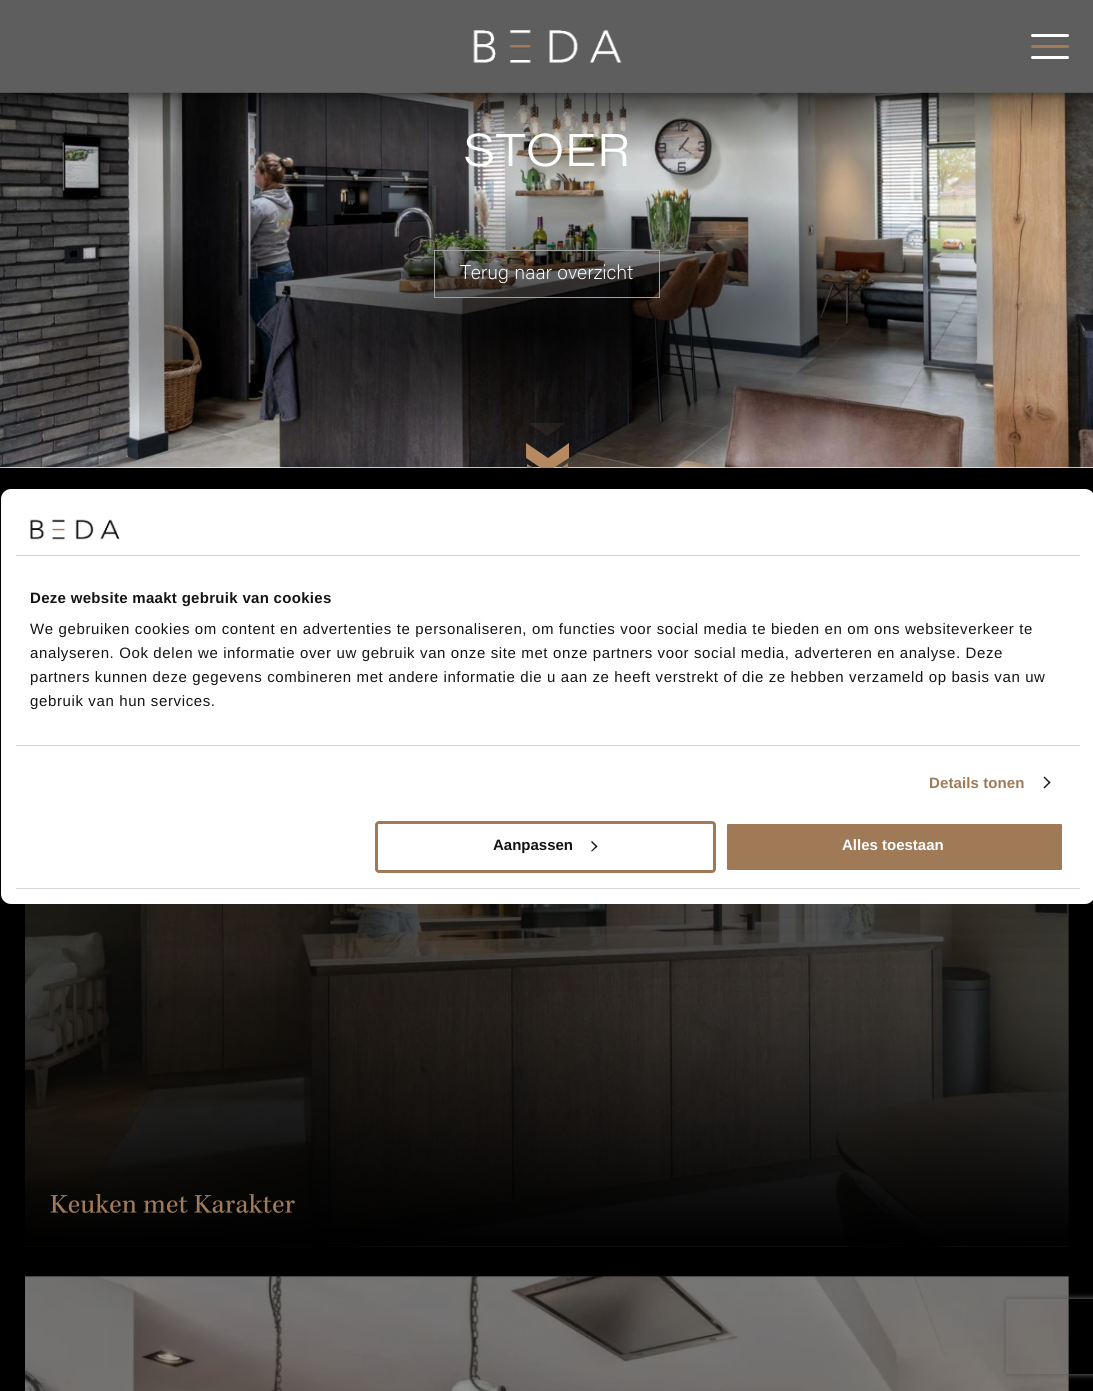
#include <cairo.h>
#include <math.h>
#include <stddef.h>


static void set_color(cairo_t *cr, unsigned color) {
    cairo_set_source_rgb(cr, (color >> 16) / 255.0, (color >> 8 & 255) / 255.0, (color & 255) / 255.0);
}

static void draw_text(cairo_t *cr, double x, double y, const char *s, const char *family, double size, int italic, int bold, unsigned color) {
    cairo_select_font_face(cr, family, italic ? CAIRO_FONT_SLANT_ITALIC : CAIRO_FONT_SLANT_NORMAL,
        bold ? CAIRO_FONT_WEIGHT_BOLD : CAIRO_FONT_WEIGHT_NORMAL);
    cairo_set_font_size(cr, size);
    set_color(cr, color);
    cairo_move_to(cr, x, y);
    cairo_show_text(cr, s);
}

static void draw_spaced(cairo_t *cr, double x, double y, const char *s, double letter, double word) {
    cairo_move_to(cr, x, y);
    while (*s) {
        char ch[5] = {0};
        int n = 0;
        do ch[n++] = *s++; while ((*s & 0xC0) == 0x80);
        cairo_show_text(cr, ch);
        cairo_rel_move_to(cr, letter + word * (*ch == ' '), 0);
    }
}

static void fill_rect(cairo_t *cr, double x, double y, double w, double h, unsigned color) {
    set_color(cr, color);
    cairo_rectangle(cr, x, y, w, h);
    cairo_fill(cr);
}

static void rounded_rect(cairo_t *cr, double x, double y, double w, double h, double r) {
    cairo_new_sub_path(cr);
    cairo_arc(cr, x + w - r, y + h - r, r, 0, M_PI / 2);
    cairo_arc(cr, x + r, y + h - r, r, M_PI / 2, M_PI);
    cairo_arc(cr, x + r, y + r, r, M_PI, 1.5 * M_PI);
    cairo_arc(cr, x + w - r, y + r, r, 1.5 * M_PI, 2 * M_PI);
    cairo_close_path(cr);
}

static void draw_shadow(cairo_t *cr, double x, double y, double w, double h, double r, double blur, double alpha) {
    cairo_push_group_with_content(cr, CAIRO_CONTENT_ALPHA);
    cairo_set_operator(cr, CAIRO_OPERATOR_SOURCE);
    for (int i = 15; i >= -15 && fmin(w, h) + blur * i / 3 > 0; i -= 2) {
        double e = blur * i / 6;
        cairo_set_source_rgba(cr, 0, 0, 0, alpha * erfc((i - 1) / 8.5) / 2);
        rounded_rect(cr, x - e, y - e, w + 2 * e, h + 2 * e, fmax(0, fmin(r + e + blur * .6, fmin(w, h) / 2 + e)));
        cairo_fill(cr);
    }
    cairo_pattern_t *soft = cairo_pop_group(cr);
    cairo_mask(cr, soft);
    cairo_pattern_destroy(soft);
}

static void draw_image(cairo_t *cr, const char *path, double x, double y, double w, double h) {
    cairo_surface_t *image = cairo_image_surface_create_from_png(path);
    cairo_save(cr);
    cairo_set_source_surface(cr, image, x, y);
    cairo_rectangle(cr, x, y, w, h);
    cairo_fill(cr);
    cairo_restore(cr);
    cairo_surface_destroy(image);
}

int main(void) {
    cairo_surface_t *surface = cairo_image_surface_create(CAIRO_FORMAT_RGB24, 1093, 1391);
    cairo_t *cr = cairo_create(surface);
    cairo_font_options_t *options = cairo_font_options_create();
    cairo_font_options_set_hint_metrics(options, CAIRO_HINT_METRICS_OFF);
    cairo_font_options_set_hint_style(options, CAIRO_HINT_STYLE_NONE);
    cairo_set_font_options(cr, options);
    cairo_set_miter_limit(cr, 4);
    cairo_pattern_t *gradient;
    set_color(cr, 0xFFFFFF);
    cairo_paint(cr);
    draw_image(cr, "assets/img2.png", 0, 92, 1093, 376);
    cairo_save(cr);
    cairo_set_fill_rule(cr, CAIRO_FILL_RULE_EVEN_ODD);
    cairo_new_path(cr);
    cairo_move_to(cr, 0, 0);
    cairo_line_to(cr, 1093, 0);
    cairo_line_to(cr, 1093, 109);
    cairo_line_to(cr, 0, 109);
    cairo_close_path(cr);
    cairo_move_to(cr, 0, 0);
    cairo_line_to(cr, 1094, 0);
    cairo_line_to(cr, 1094, 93);
    cairo_line_to(cr, 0, 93);
    cairo_close_path(cr);
    cairo_clip(cr);
    set_color(cr, 0x000000);
    draw_shadow(cr, 0, 4, 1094, 92, 0, 4, 0.36);
    cairo_restore(cr);
    cairo_set_source_rgba(cr, 0.161, 0.161, 0.161, 0.75);
    cairo_rectangle(cr, 0, 0, 1093, 93);
    cairo_fill(cr);
    draw_image(cr, "assets/img1.png", 473, 30, 149, 33);
    set_color(cr, 0xFFFFFF);
    rounded_rect(cr, 1031, 34, 38, 3, 1.5);
    cairo_fill(cr);
    set_color(cr, 0xA17A57);
    rounded_rect(cr, 1031, 45, 38, 3, 1.5);
    cairo_fill(cr);
    set_color(cr, 0xFFFFFF);
    rounded_rect(cr, 1031, 56, 38, 3, 1.5);
    cairo_fill(cr);
    cairo_select_font_face(cr, "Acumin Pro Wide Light", CAIRO_FONT_SLANT_NORMAL, CAIRO_FONT_WEIGHT_NORMAL);
    cairo_set_font_size(cr, 45);
    draw_spaced(cr, 463, 166, "STOER", 0.5, 0);
    gradient = cairo_pattern_create_radial(0, 0, 0, 0, 0, 1);
    cairo_pattern_set_matrix(gradient, &(cairo_matrix_t){1.0 / 547, 0, 0, 1.0 / 141, -1.0 * 547 / 547, -1.0 * 327 / 141});
    cairo_pattern_add_color_stop_rgba(gradient, 0, 0, 0, 0, 0.85);
    cairo_pattern_add_color_stop_rgba(gradient, 1, 0, 0, 0, 0);
    cairo_set_source(cr, gradient);
    cairo_pattern_destroy(gradient);
    cairo_rectangle(cr, 19, 190, 1050, 272);
    cairo_fill(cr);
    cairo_rectangle(cr, 434.5, 250.5, 225, 47);
    set_color(cr, 0xA3A3A3);
    cairo_set_line_width(cr, 1);
    cairo_stroke(cr);
    draw_text(cr, 460, 279, "Terug naar overzicht", "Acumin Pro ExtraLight", 20, 0, 0, 0xFFFFFF);
    cairo_save(cr);
    cairo_rectangle(cr, 506, 423, 83, 45);
    cairo_clip(cr);
    cairo_set_source_rgba(cr, 0.722, 0.545, 0.384, 0.88);
    cairo_new_path(cr);
    cairo_move_to(cr, 568, 463);
    cairo_line_to(cr, 548, 477);
    cairo_line_to(cr, 527, 464);
    cairo_line_to(cr, 527, 477);
    cairo_line_to(cr, 547, 491);
    cairo_line_to(cr, 568, 477);
    cairo_close_path(cr);
    cairo_fill(cr);
    set_color(cr, 0xB88B62);
    cairo_new_path(cr);
    cairo_move_to(cr, 569, 443);
    cairo_line_to(cr, 548, 458);
    cairo_line_to(cr, 526, 443);
    cairo_line_to(cr, 526, 458);
    cairo_line_to(cr, 547, 472);
    cairo_line_to(cr, 569, 458);
    cairo_close_path(cr);
    cairo_fill(cr);
    cairo_set_source_rgba(cr, 0.722, 0.545, 0.384, 0.1);
    cairo_new_path(cr);
    cairo_move_to(cr, 569, 406);
    cairo_line_to(cr, 548, 421);
    cairo_line_to(cr, 526, 406);
    cairo_line_to(cr, 526, 421);
    cairo_line_to(cr, 547, 436);
    cairo_line_to(cr, 569, 421);
    cairo_close_path(cr);
    cairo_fill(cr);
    cairo_restore(cr);
    fill_rect(cr, 0, 468, 1093, 923, 0x000000);
    fill_rect(cr, 1068, 904, 1, 339, 0x121212);
    draw_image(cr, "assets/img3.png", 25, 904, 1044, 343);
    gradient = cairo_pattern_create_linear(547, 709, 547, 1246);
    cairo_pattern_add_color_stop_rgba(gradient, 0, 0, 0, 0, 0);
    cairo_pattern_add_color_stop_rgba(gradient, 1, 0, 0, 0, 1);
    cairo_set_source(cr, gradient);
    cairo_pattern_destroy(gradient);
    cairo_rectangle(cr, 25, 904, 1044, 342);
    cairo_fill(cr);
    draw_image(cr, "assets/img4.png", 50, 1193, 245, 20);
    draw_image(cr, "assets/img5.png", 25, 1276, 1044, 115);
    cairo_save(cr);
    cairo_set_fill_rule(cr, CAIRO_FILL_RULE_EVEN_ODD);
    cairo_new_path(cr);
    cairo_move_to(cr, 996, 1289);
    cairo_line_to(cr, 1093, 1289);
    cairo_line_to(cr, 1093, 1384);
    cairo_line_to(cr, 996, 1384);
    cairo_close_path(cr);
    cairo_move_to(cr, 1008.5, 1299);
    cairo_line_to(cr, 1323.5, 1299);
    cairo_curve_to(cr, 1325, 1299, 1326, 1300, 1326, 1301.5);
    cairo_line_to(cr, 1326, 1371.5);
    cairo_curve_to(cr, 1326, 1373, 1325, 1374, 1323.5, 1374);
    cairo_line_to(cr, 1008.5, 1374);
    cairo_curve_to(cr, 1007, 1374, 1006, 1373, 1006, 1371.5);
    cairo_line_to(cr, 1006, 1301.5);
    cairo_curve_to(cr, 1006, 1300, 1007, 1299, 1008.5, 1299);
    cairo_close_path(cr);
    cairo_clip(cr);
    set_color(cr, 0x808080);
    draw_shadow(cr, 1006, 1299, 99, 75, 2.5, 3, 1);
    cairo_restore(cr);
    cairo_set_source_rgba(cr, 0.161, 0.161, 0.161, 0.45);
    cairo_rectangle(cr, 25, 1276, 1044, 115);
    cairo_fill(cr);
    set_color(cr, 0x000000);
    draw_shadow(cr, 1, 526, 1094, 415, 10, 44, 0.3);
    set_color(cr, 0xFFFFFF);
    rounded_rect(cr, 1, 489, 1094, 415, 10);
    cairo_fill(cr);
    fill_rect(cr, 16, 555, 1064, 1, 0xD6D6D6);
    draw_image(cr, "assets/img6.png", 30, 519, 90, 21);
    fill_rect(cr, 16, 745, 1064, 1, 0xD6D6D6);
    cairo_select_font_face(cr, "Liberation Sans", CAIRO_FONT_SLANT_NORMAL, CAIRO_FONT_WEIGHT_BOLD);
    cairo_set_font_size(cr, 15);
    set_color(cr, 0x141414);
    draw_spaced(cr, 30, 603, "Deze website maakt gebruik van cookies", 0.3, 0);
    cairo_select_font_face(cr, "Liberation Sans", CAIRO_FONT_SLANT_NORMAL, CAIRO_FONT_WEIGHT_NORMAL);
    draw_spaced(cr, 30, 634, "We gebruiken cookies om content en advertenties te personaliseren, om functies voor social media te bieden en om ons websiteverkeer te", 0.62, 0);
    draw_spaced(cr, 30, 658, "analyseren. Ook delen we informatie over uw gebruik van onze site met onze partners voor social media, adverteren en analyse. Deze", 0.62, 0);
    draw_spaced(cr, 30, 682, "partners kunnen deze gegevens combineren met andere informatie die u aan ze heeft verstrekt of die ze hebben verzameld op basis van uw", 0.62, 0);
    draw_spaced(cr, 30, 706, "gebruik van hun services.", 0.62, 0);
    cairo_select_font_face(cr, "Liberation Sans", CAIRO_FONT_SLANT_NORMAL, CAIRO_FONT_WEIGHT_BOLD);
    set_color(cr, 0xA07A57);
    draw_spaced(cr, 929, 788, "Details tonen", 0.1, 0);
    set_color(cr, 0x141414);
    cairo_new_path(cr);
    cairo_move_to(cr, 1044.5, 776.5);
    cairo_line_to(cr, 1050.5, 782.5);
    cairo_line_to(cr, 1049.5, 783.5);
    cairo_line_to(cr, 1043.5, 777.5);
    cairo_close_path(cr);
    cairo_fill(cr);
    cairo_new_path(cr);
    cairo_move_to(cr, 1049.5, 781.5);
    cairo_line_to(cr, 1050.5, 782.5);
    cairo_line_to(cr, 1044.5, 788.5);
    cairo_line_to(cr, 1043.5, 787.5);
    cairo_close_path(cr);
    cairo_fill(cr);
    fill_rect(cr, 16, 888, 1064, 1, 0xD6D6D6);
    rounded_rect(cr, 376.5, 822.5, 338, 49, 2.5);
    set_color(cr, 0xA07A57);
    cairo_set_line_width(cr, 3);
    cairo_stroke(cr);
    draw_text(cr, 493, 850, "Aanpassen", "Liberation Sans", 15, 0, 1, 0x141414);
    cairo_new_path(cr);
    cairo_move_to(cr, 592, 841);
    cairo_line_to(cr, 597.5, 846.5);
    cairo_line_to(cr, 596.5, 847.5);
    cairo_line_to(cr, 591, 842);
    cairo_close_path(cr);
    cairo_fill(cr);
    cairo_new_path(cr);
    cairo_move_to(cr, 596.5, 845.5);
    cairo_line_to(cr, 597.5, 846.5);
    cairo_line_to(cr, 592, 851.5);
    cairo_line_to(cr, 591, 851);
    cairo_close_path(cr);
    cairo_fill(cr);
    set_color(cr, 0xA07A57);
    rounded_rect(cr, 725.5, 822.5, 338, 49, 2.5);
    cairo_fill_preserve(cr);
    set_color(cr, 0xFFFFFF);
    cairo_stroke(cr);
    draw_text(cr, 842, 850, "Alles toestaan", "Liberation Sans", 15, 0, 1, 0xFFFFFF);
    cairo_surface_write_to_png(surface, "output.png");
    cairo_font_options_destroy(options);
    cairo_destroy(cr);
    cairo_surface_destroy(surface);
    return 0;
}
